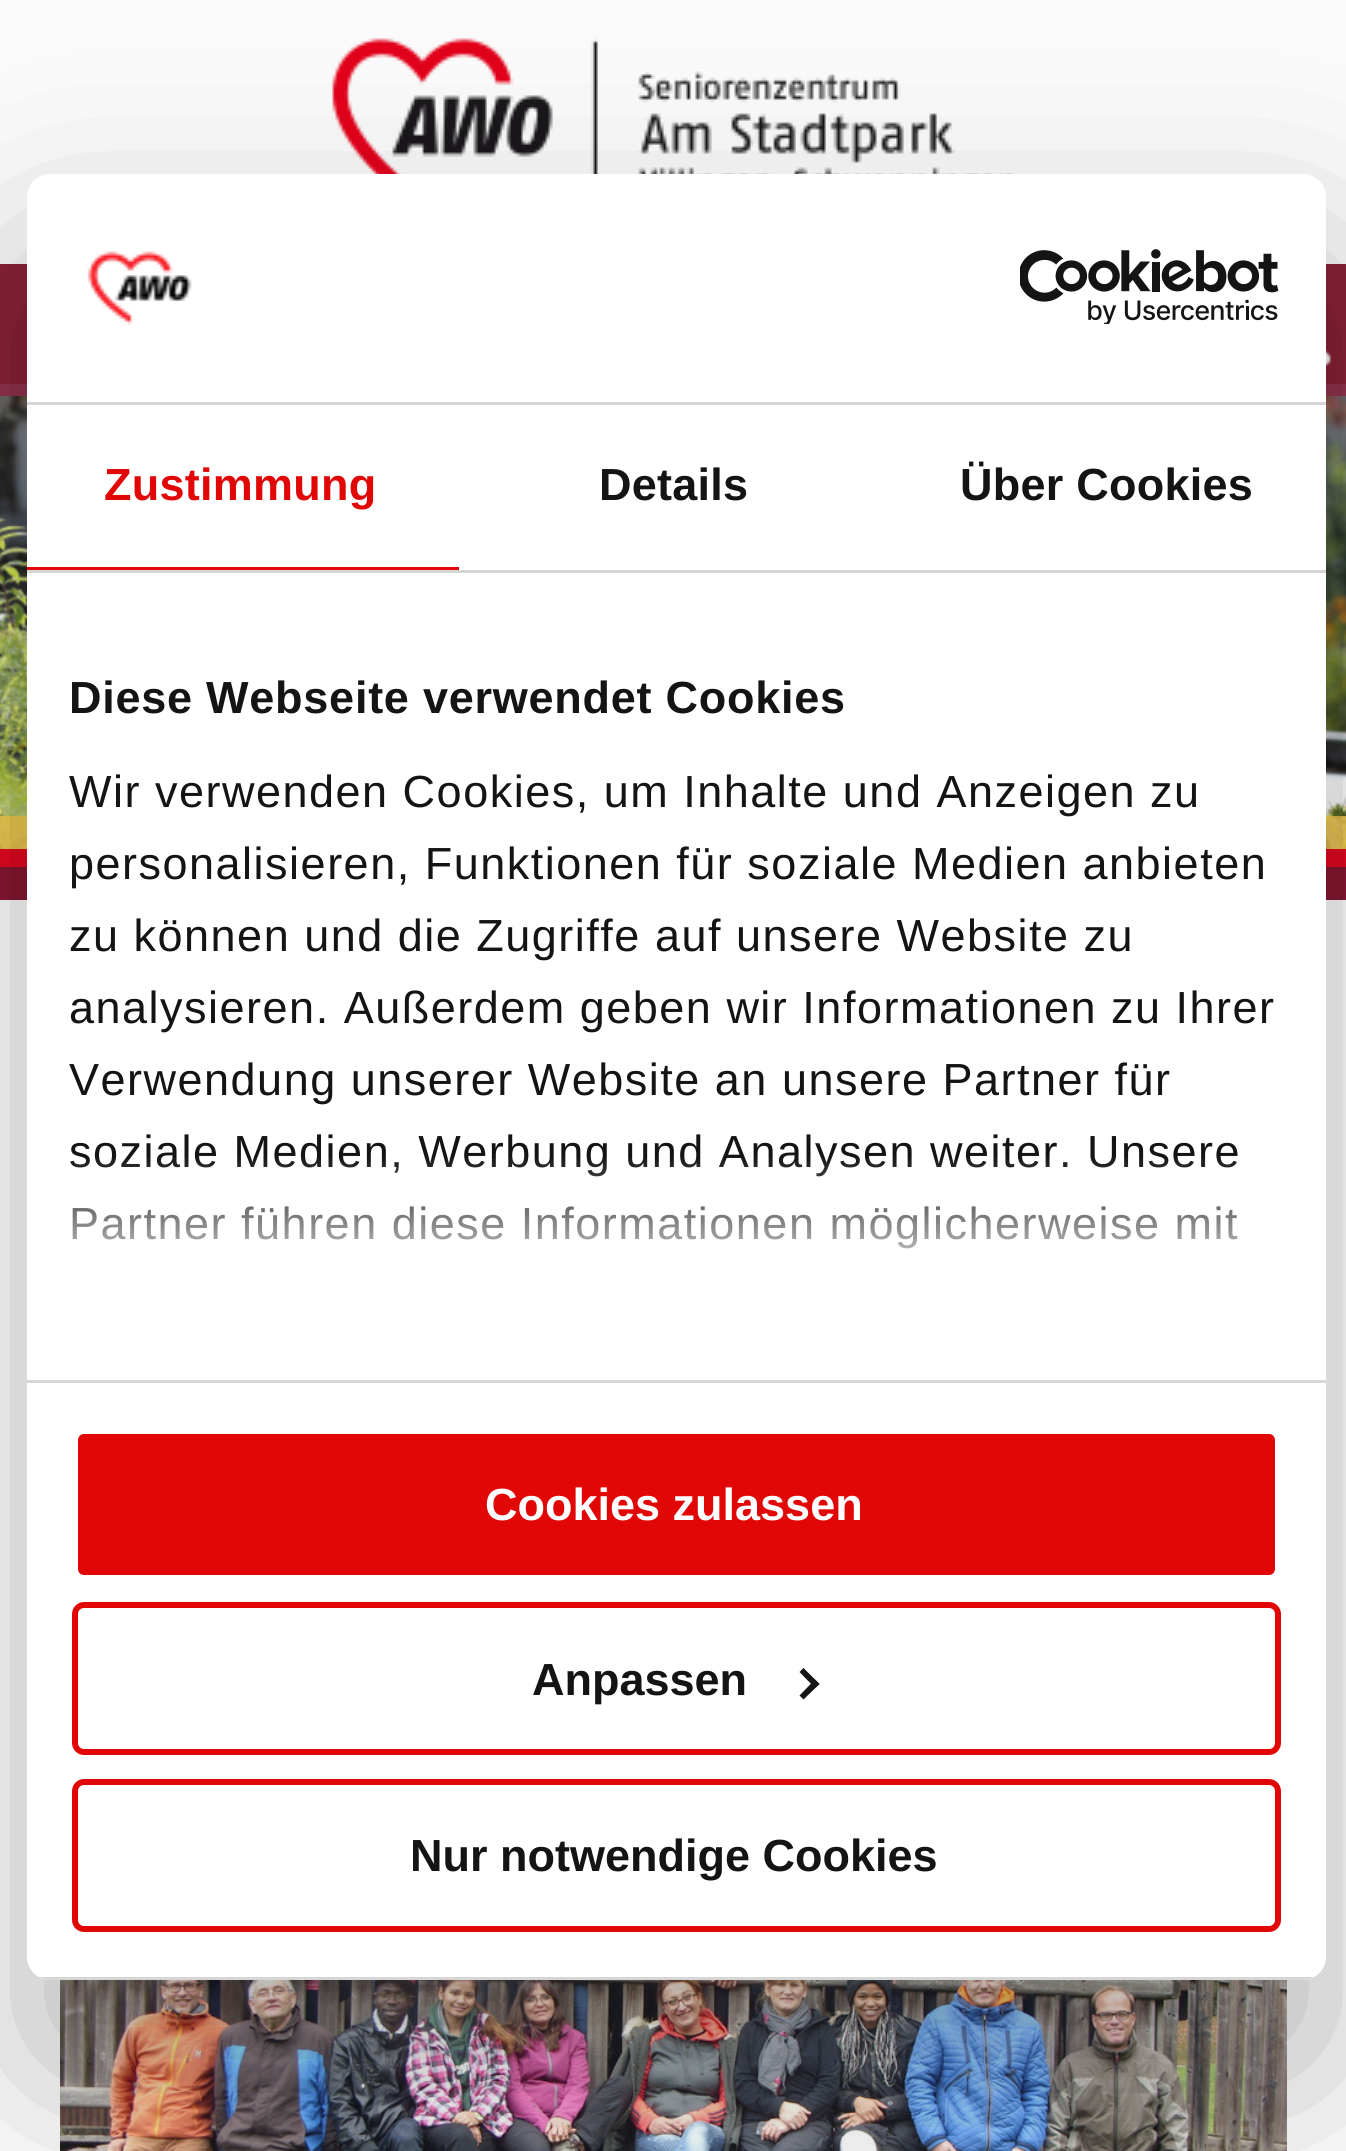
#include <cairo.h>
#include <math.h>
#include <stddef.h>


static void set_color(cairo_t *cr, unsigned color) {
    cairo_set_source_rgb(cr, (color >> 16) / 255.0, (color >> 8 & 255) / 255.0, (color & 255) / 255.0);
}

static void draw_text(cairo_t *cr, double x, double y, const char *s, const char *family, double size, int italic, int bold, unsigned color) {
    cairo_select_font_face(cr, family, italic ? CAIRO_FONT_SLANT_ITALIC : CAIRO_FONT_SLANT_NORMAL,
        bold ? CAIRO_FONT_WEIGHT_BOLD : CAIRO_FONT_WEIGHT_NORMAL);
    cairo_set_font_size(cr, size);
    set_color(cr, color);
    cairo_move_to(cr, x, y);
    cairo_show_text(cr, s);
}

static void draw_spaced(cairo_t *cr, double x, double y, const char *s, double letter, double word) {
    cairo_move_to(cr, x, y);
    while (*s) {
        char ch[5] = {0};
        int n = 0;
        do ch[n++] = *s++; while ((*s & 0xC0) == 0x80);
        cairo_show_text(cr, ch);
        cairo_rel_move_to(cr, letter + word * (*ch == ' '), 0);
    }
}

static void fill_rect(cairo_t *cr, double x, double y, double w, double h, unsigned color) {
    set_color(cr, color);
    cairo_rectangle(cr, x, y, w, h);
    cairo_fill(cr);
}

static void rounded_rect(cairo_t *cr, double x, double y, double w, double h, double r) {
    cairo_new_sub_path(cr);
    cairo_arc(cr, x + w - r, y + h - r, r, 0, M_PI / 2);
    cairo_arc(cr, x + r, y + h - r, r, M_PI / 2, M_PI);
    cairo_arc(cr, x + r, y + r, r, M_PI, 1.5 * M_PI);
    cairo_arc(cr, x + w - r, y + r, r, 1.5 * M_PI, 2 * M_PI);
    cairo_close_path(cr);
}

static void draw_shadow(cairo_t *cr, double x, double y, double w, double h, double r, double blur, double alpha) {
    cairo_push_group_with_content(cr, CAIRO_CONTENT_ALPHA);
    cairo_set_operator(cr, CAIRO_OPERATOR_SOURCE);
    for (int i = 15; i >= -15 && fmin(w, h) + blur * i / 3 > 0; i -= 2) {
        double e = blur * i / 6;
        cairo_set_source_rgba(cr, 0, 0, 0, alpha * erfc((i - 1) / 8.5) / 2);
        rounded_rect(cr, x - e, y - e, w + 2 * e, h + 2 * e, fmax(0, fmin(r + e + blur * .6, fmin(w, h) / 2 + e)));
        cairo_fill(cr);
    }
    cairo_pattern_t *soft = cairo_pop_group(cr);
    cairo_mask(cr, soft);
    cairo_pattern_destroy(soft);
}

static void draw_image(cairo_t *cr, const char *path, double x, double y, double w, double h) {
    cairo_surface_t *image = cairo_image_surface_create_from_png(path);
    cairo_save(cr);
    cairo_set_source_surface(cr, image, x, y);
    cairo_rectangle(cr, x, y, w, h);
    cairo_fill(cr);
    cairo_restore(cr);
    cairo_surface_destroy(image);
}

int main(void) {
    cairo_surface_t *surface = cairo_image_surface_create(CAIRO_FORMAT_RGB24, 1346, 2151);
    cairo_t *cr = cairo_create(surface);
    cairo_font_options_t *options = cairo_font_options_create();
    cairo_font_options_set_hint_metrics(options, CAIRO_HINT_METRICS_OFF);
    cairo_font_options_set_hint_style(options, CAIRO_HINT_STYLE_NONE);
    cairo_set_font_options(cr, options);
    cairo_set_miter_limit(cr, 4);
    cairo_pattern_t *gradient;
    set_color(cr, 0xFFFFFF);
    cairo_paint(cr);
    fill_rect(cr, 0, 384, 1346, 12, 0x93334F);
    fill_rect(cr, 0, 0, 1346, 264, 0xFAFAFA);
    draw_image(cr, "assets/img1.png", 332, 38, 682, 136);
    fill_rect(cr, 0, 264, 1346, 120, 0x8A2237);
    draw_image(cr, "assets/img2.png", 1326, 350, 5, 16);
    draw_image(cr, "assets/img3.png", 0, 396, 1346, 453);
    cairo_set_source_rgba(cr, 1, 0.808, 0.298, 0.8);
    cairo_rectangle(cr, 0, 816, 1346, 33);
    cairo_fill(cr);
    fill_rect(cr, 0, 849, 1346, 18, 0xE50720);
    fill_rect(cr, 0, 867, 1346, 33, 0x871733);
    draw_image(cr, "assets/img4.png", 60, 1980, 1227, 171);
    cairo_save(cr);
    cairo_set_fill_rule(cr, CAIRO_FILL_RULE_EVEN_ODD);
    cairo_new_path(cr);
    cairo_move_to(cr, 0, 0);
    cairo_line_to(cr, 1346, 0);
    cairo_line_to(cr, 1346, 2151);
    cairo_line_to(cr, 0, 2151);
    cairo_close_path(cr);
    cairo_move_to(cr, 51, 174);
    cairo_line_to(cr, 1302, 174);
    cairo_curve_to(cr, 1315.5, 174, 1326, 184.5, 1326, 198);
    cairo_line_to(cr, 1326, 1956);
    cairo_curve_to(cr, 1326, 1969.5, 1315.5, 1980, 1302, 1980);
    cairo_line_to(cr, 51, 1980);
    cairo_curve_to(cr, 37.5, 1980, 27, 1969.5, 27, 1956);
    cairo_line_to(cr, 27, 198);
    cairo_curve_to(cr, 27, 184.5, 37.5, 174, 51, 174);
    cairo_close_path(cr);
    cairo_clip(cr);
    set_color(cr, 0x000000);
    draw_shadow(cr, 27, 270, 1299, 1806, 24, 102, 0.3);
    cairo_restore(cr);
    set_color(cr, 0xFFFFFF);
    rounded_rect(cr, 27, 174, 1299, 1806, 24);
    cairo_fill(cr);
    fill_rect(cr, 27, 402, 1299, 3, 0xD6D6D6);
    draw_image(cr, "assets/img5.png", 87, 251, 105, 74);
    draw_image(cr, "assets/img6.png", 1020, 249, 259, 75);
    fill_rect(cr, 27, 570, 1299, 3, 0xD6D6D6);
    fill_rect(cr, 27, 567, 432, 3, 0xE10707);
    cairo_select_font_face(cr, "Liberation Sans", CAIRO_FONT_SLANT_NORMAL, CAIRO_FONT_WEIGHT_BOLD);
    cairo_set_font_size(cr, 45);
    draw_spaced(cr, 104, 500, "Zustimmung", 0.25, 0);
    set_color(cr, 0x141414);
    draw_spaced(cr, 599, 500, "Details", 0.25, 0);
    draw_spaced(cr, 960, 500, "Über Cookies", 0.25, 0);
    fill_rect(cr, 27, 1380, 1299, 3, 0xD6D6D6);
    set_color(cr, 0x141414);
    draw_spaced(cr, 69, 713, "Diese Webseite verwendet Cookies", 0.75, 0);
    cairo_select_font_face(cr, "Liberation Sans", CAIRO_FONT_SLANT_NORMAL, CAIRO_FONT_WEIGHT_NORMAL);
    draw_spaced(cr, 69, 807, "Wir verwenden Cookies, um Inhalte und Anzeigen zu", 1.5, 0);
    draw_spaced(cr, 69, 879, "personalisieren, Funktionen für soziale Medien anbieten", 1.5, 0);
    draw_spaced(cr, 69, 951, "zu können und die Zugriffe auf unsere Website zu", 1.5, 0);
    draw_spaced(cr, 69, 1023, "analysieren. Außerdem geben wir Informationen zu Ihrer", 1.5, 0);
    draw_spaced(cr, 69, 1095, "Verwendung unserer Website an unsere Partner für", 1.5, 0);
    draw_spaced(cr, 69, 1167, "soziale Medien, Werbung und Analysen weiter. Unsere", 1.5, 0);
    draw_spaced(cr, 69, 1239, "Partner führen diese Informationen möglicherweise mit", 1.5, 0);
    gradient = cairo_pattern_create_linear(656, 1380, 656, 1155);
    cairo_pattern_add_color_stop_rgba(gradient, 0, 1, 1, 1, 1);
    cairo_pattern_add_color_stop_rgba(gradient, 0.5, 1, 1, 1, 0.8);
    cairo_pattern_add_color_stop_rgba(gradient, 1, 1, 1, 1, 0);
    cairo_set_source(cr, gradient);
    cairo_pattern_destroy(gradient);
    cairo_rectangle(cr, 70, 1158, 1168, 91);
    cairo_fill(cr);
    cairo_save(cr);
    rounded_rect(cr, 27, 174, 1299, 1806, 24);
    cairo_clip(cr);
    fill_rect(cr, 39, 1977, 1275, 3, 0xD6D6D6);
    cairo_restore(cr);
    set_color(cr, 0xE10707);
    rounded_rect(cr, 75, 1431, 1203, 147, 9);
    cairo_fill_preserve(cr);
    set_color(cr, 0xFFFFFF);
    cairo_set_line_width(cr, 6);
    cairo_stroke(cr);
    draw_text(cr, 485, 1520, "Cookies zulassen", "Liberation Sans", 45, 0, 1, 0xFFFFFF);
    rounded_rect(cr, 75, 1605, 1203, 147, 9);
    set_color(cr, 0xE10707);
    cairo_stroke(cr);
    draw_text(cr, 532, 1695, "Anpassen", "Liberation Sans", 45, 0, 1, 0x141414);
    cairo_new_path(cr);
    cairo_move_to(cr, 803.5, 1668);
    cairo_line_to(cr, 819.5, 1684);
    cairo_line_to(cr, 815, 1688);
    cairo_line_to(cr, 799.5, 1672);
    cairo_close_path(cr);
    cairo_fill(cr);
    cairo_new_path(cr);
    cairo_move_to(cr, 815, 1679.5);
    cairo_line_to(cr, 819.5, 1684);
    cairo_line_to(cr, 803.5, 1699.5);
    cairo_line_to(cr, 799.5, 1695.5);
    cairo_close_path(cr);
    cairo_fill(cr);
    rounded_rect(cr, 75, 1782, 1203, 147, 9);
    set_color(cr, 0xE10707);
    cairo_stroke(cr);
    draw_text(cr, 410, 1871, "Nur notwendige Cookies", "Liberation Sans", 45, 0, 1, 0x141414);
    cairo_surface_write_to_png(surface, "output.png");
    cairo_font_options_destroy(options);
    cairo_destroy(cr);
    cairo_surface_destroy(surface);
    return 0;
}
